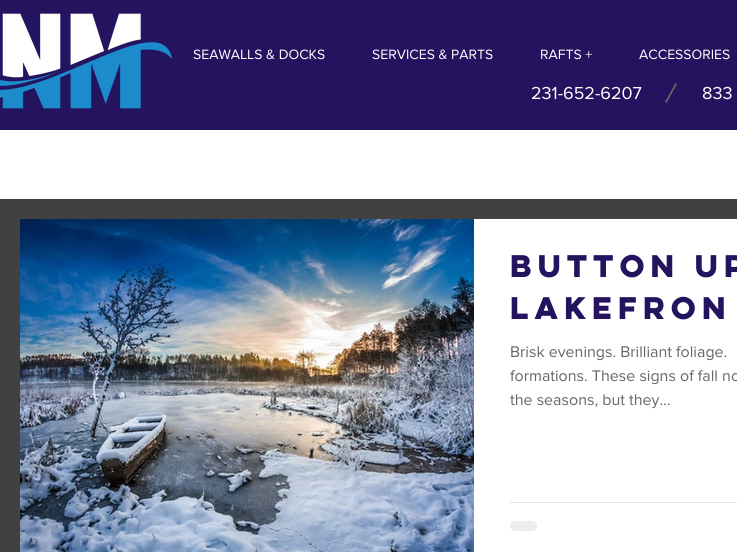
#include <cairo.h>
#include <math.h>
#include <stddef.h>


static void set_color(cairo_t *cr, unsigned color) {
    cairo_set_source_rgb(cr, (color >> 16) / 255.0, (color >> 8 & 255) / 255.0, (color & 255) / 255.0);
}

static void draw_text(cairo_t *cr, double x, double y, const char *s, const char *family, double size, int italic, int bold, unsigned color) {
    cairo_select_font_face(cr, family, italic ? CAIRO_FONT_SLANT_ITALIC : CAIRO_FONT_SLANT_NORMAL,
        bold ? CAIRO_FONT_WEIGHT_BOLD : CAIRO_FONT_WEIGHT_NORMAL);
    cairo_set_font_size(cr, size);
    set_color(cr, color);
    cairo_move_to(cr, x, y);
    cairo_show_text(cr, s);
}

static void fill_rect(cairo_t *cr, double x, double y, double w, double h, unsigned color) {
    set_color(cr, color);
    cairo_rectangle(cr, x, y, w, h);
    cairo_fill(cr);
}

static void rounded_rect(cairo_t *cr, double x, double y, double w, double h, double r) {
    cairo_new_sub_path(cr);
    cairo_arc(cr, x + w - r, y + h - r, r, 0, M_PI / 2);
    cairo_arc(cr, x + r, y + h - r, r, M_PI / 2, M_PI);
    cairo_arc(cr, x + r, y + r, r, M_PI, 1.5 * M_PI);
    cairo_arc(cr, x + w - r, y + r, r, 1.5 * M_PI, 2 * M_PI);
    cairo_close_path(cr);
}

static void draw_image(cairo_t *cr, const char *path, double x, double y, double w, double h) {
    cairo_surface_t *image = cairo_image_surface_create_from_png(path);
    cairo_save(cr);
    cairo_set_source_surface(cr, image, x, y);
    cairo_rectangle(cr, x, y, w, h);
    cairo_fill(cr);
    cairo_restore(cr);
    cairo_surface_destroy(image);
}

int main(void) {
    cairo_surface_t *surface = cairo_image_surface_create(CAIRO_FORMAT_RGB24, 737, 552);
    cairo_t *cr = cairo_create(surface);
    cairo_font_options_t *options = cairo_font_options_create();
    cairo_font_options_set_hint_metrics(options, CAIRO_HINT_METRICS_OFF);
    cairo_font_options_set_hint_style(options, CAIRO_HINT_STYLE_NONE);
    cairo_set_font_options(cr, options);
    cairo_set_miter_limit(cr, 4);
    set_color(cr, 0x414141);
    cairo_paint(cr);
    fill_rect(cr, 0, 0, 737, 130, 0x24135F);
    draw_image(cr, "assets/img1.png", 0, 13, 173, 96);
    draw_text(cr, 193, 59, "SEAWALLS & DOCKS", "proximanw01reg", 14, 0, 0, 0xFFFFFF);
    draw_text(cr, 372, 59, "SERVICES & PARTS", "proximanw01reg", 14, 0, 0, 0xFFFFFF);
    draw_text(cr, 540, 59, "RAFTS +", "proximanw01reg", 14, 0, 0, 0xFFFFFF);
    draw_text(cr, 639, 59, "ACCESSORIES", "proximanw01reg", 14, 0, 0, 0xFFFFFF);
    draw_text(cr, 531, 99, "231-652-6207", "proximanw01reg", 18, 0, 0, 0xFFFFFF);
    set_color(cr, 0x666666);
    cairo_new_path(cr);
    cairo_move_to(cr, 677, 84);
    cairo_line_to(cr, 666.5, 103);
    cairo_line_to(cr, 665, 102);
    cairo_line_to(cr, 675.5, 83);
    cairo_close_path(cr);
    cairo_fill(cr);
    draw_text(cr, 702, 99, "833", "proximanw01reg", 18, 0, 0, 0xFFFFFF);
    fill_rect(cr, 0, 130, 737, 69, 0xFFFFFF);
    draw_image(cr, "assets/img2.png", 20, 219, 454, 333);
    fill_rect(cr, 474, 219, 263, 333, 0xFFFFFF);
    draw_text(cr, 510, 277, "Button up", "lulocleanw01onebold", 28, 0, 1, 0x24135F);
    draw_text(cr, 510, 319, "Lakefron", "lulocleanw01onebold", 28, 0, 1, 0x24135F);
    draw_text(cr, 510, 357, "Brisk evenings. Brilliant foliage.", "proximanw01reg", 16, 0, 0, 0x666666);
    draw_text(cr, 510, 381, "formations. These signs of fall no", "proximanw01reg", 16, 0, 0, 0x666666);
    draw_text(cr, 510, 405, "the seasons, but they...", "proximanw01reg", 16, 0, 0, 0x666666);
    fill_rect(cr, 510, 502, 227, 1, 0xE0E0E0);
    set_color(cr, 0xEDEDED);
    rounded_rect(cr, 510, 521, 27, 10, 5);
    cairo_fill(cr);
    cairo_surface_write_to_png(surface, "output.png");
    cairo_font_options_destroy(options);
    cairo_destroy(cr);
    cairo_surface_destroy(surface);
    return 0;
}
